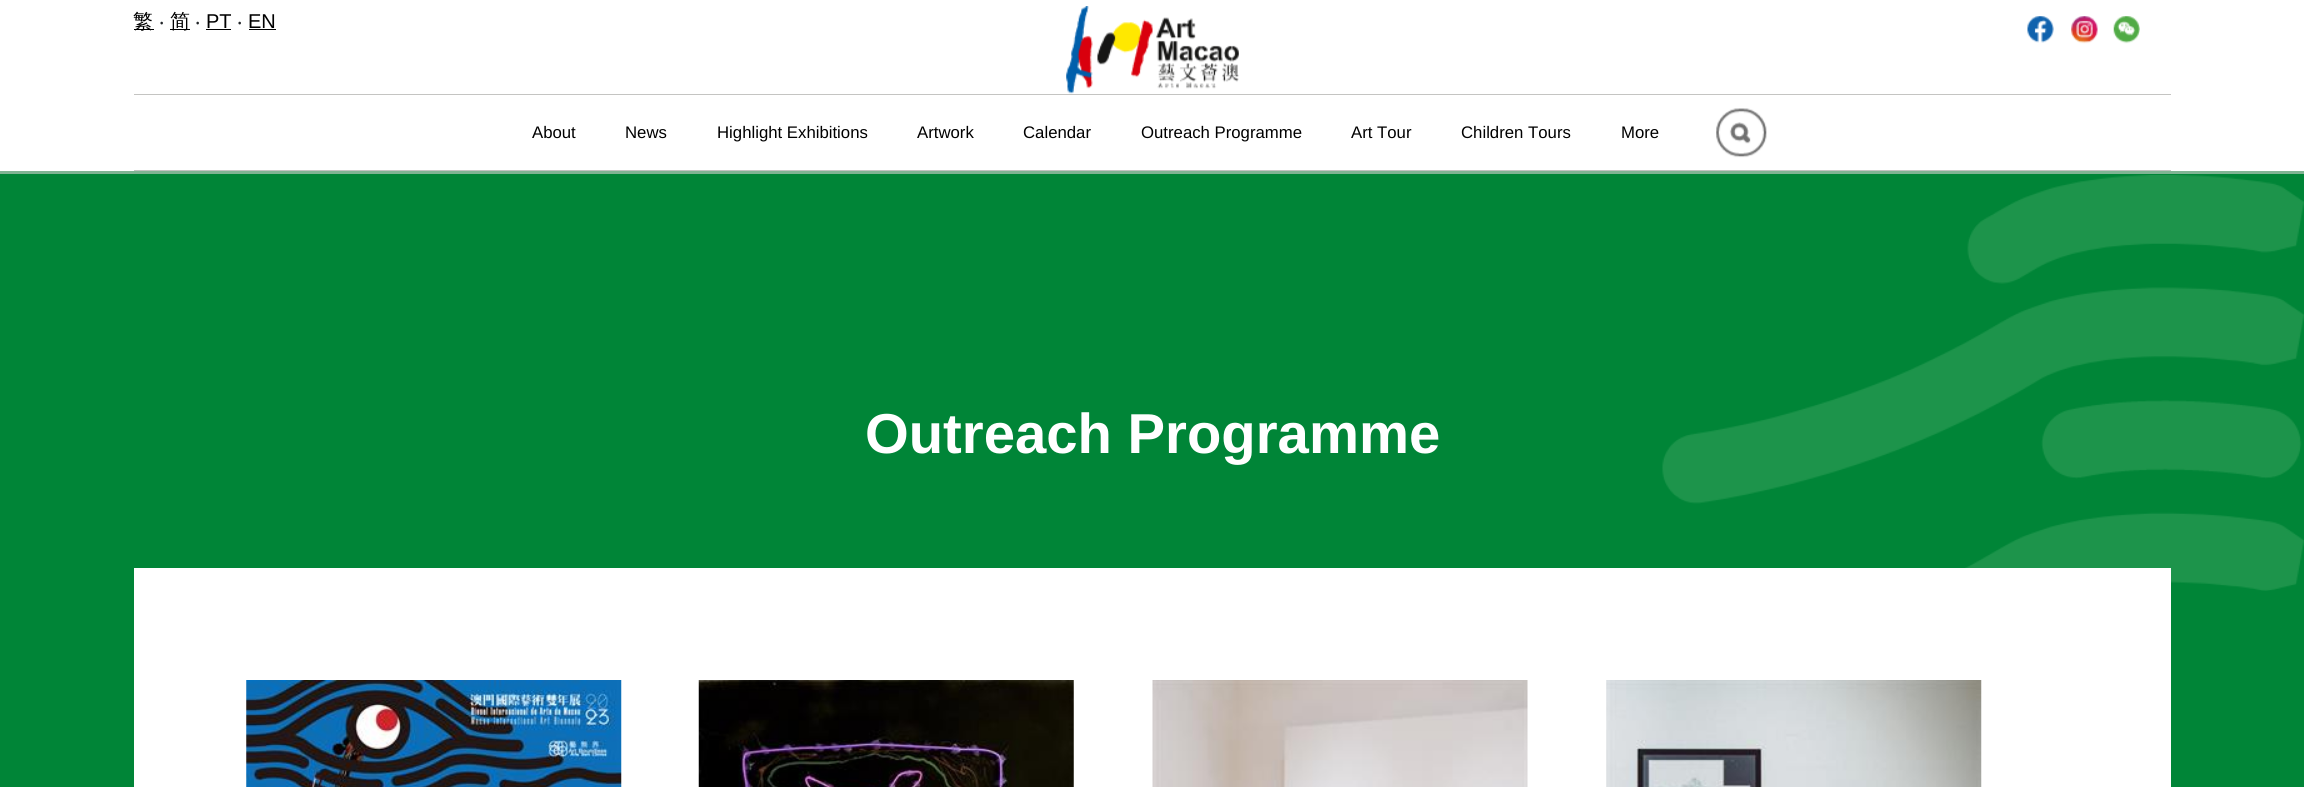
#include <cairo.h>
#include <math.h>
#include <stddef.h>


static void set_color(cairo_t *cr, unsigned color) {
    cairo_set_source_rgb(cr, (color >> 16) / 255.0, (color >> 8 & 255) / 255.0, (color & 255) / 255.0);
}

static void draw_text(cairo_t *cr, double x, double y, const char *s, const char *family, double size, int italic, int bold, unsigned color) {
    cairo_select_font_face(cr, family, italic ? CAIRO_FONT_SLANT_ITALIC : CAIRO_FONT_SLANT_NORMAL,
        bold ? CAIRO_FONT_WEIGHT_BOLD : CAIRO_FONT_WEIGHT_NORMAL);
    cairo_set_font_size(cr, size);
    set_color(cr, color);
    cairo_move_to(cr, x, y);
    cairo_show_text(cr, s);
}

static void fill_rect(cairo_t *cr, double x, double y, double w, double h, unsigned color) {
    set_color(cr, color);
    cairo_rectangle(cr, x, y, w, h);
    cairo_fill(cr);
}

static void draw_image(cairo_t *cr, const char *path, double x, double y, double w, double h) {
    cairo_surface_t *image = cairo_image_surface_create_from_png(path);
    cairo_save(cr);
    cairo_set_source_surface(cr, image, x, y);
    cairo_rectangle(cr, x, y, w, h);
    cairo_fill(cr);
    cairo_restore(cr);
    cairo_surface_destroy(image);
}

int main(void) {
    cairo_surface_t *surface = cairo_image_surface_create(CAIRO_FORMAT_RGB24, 2304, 787);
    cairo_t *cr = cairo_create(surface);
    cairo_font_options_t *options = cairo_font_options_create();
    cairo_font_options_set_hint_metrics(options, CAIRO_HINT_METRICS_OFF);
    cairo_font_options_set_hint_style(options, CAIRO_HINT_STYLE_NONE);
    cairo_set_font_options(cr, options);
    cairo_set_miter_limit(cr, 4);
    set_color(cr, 0x008537);
    cairo_paint(cr);
    fill_rect(cr, 0, 171, 2304, 3, 0x80B493);
    fill_rect(cr, 0, 0, 2304, 171, 0xFFFFFF);
    fill_rect(cr, 134, 29, 20, 1, 0x000000);
    draw_text(cr, 133, 28, "繁", "WenQuanYi Zen Hei Medium", 20, 0, 0, 0x000000);
    draw_text(cr, 159, 28, "‧", "Noto Sans", 20, 0, 0, 0x212529);
    fill_rect(cr, 170, 29, 20, 1, 0x000000);
    draw_text(cr, 170, 28, "简", "WenQuanYi Zen Hei Medium", 20, 0, 0, 0x000000);
    draw_text(cr, 195, 28, "‧", "Noto Sans", 20, 0, 0, 0x212529);
    draw_text(cr, 206, 28, "PT", "Liberation Sans", 20, 0, 0, 0x000000);
    fill_rect(cr, 206, 29, 25, 1, 0x000000);
    draw_text(cr, 237, 28, "‧", "Noto Sans", 20, 0, 0, 0x212529);
    draw_text(cr, 248, 28, "EN", "Liberation Sans", 20, 0, 0, 0x000000);
    fill_rect(cr, 249, 29, 27, 1, 0x000000);
    draw_image(cr, "assets/img1.png", 1066, 6, 173, 88);
    draw_image(cr, "assets/img2.png", 2027, 16, 27, 27);
    draw_image(cr, "assets/img3.png", 2071, 16, 27, 28);
    draw_image(cr, "assets/img4.png", 2113, 16, 27, 28);
    fill_rect(cr, 134, 94, 2037, 1, 0xC4C4C2);
    fill_rect(cr, 134, 170, 2037, 1, 0xC4C4C2);
    draw_text(cr, 532, 138, "About", "Liberation Sans", 16.75, 0, 0, 0x000000);
    draw_text(cr, 625, 138, "News", "Liberation Sans", 16.75, 0, 0, 0x000000);
    draw_text(cr, 717, 138, "Highlight Exhibitions", "Liberation Sans", 16.75, 0, 0, 0x000000);
    draw_text(cr, 917, 138, "Artwork", "Liberation Sans", 16.75, 0, 0, 0x000000);
    draw_text(cr, 1023, 138, "Calendar", "Liberation Sans", 16.75, 0, 0, 0x000000);
    draw_text(cr, 1141, 138, "Outreach Programme", "Liberation Sans", 16.75, 0, 0, 0x000000);
    draw_text(cr, 1351, 138, "Art Tour", "Liberation Sans", 16.75, 0, 0, 0x000000);
    draw_text(cr, 1461, 138, "Children Tours", "Liberation Sans", 16.75, 0, 0, 0x000000);
    draw_text(cr, 1621, 138, "More", "Liberation Sans", 16.75, 0, 0, 0x000000);
    draw_image(cr, "assets/img5.png", 1716, 108, 51, 50);
    draw_image(cr, "assets/img6.png", 1662, 175, 642, 416);
    draw_text(cr, 865, 453, "Outreach Programme", "Liberation Sans", 56.25, 0, 1, 0xFFFFFF);
    fill_rect(cr, 134, 568, 2037, 219, 0xFFFFFF);
    draw_image(cr, "assets/img7.png", 246, 680, 376, 107);
    draw_image(cr, "assets/img8.png", 698, 680, 376, 107);
    draw_image(cr, "assets/img9.png", 1152, 680, 376, 107);
    draw_image(cr, "assets/img10.png", 1606, 680, 376, 107);
    cairo_surface_write_to_png(surface, "output.png");
    cairo_font_options_destroy(options);
    cairo_destroy(cr);
    cairo_surface_destroy(surface);
    return 0;
}
